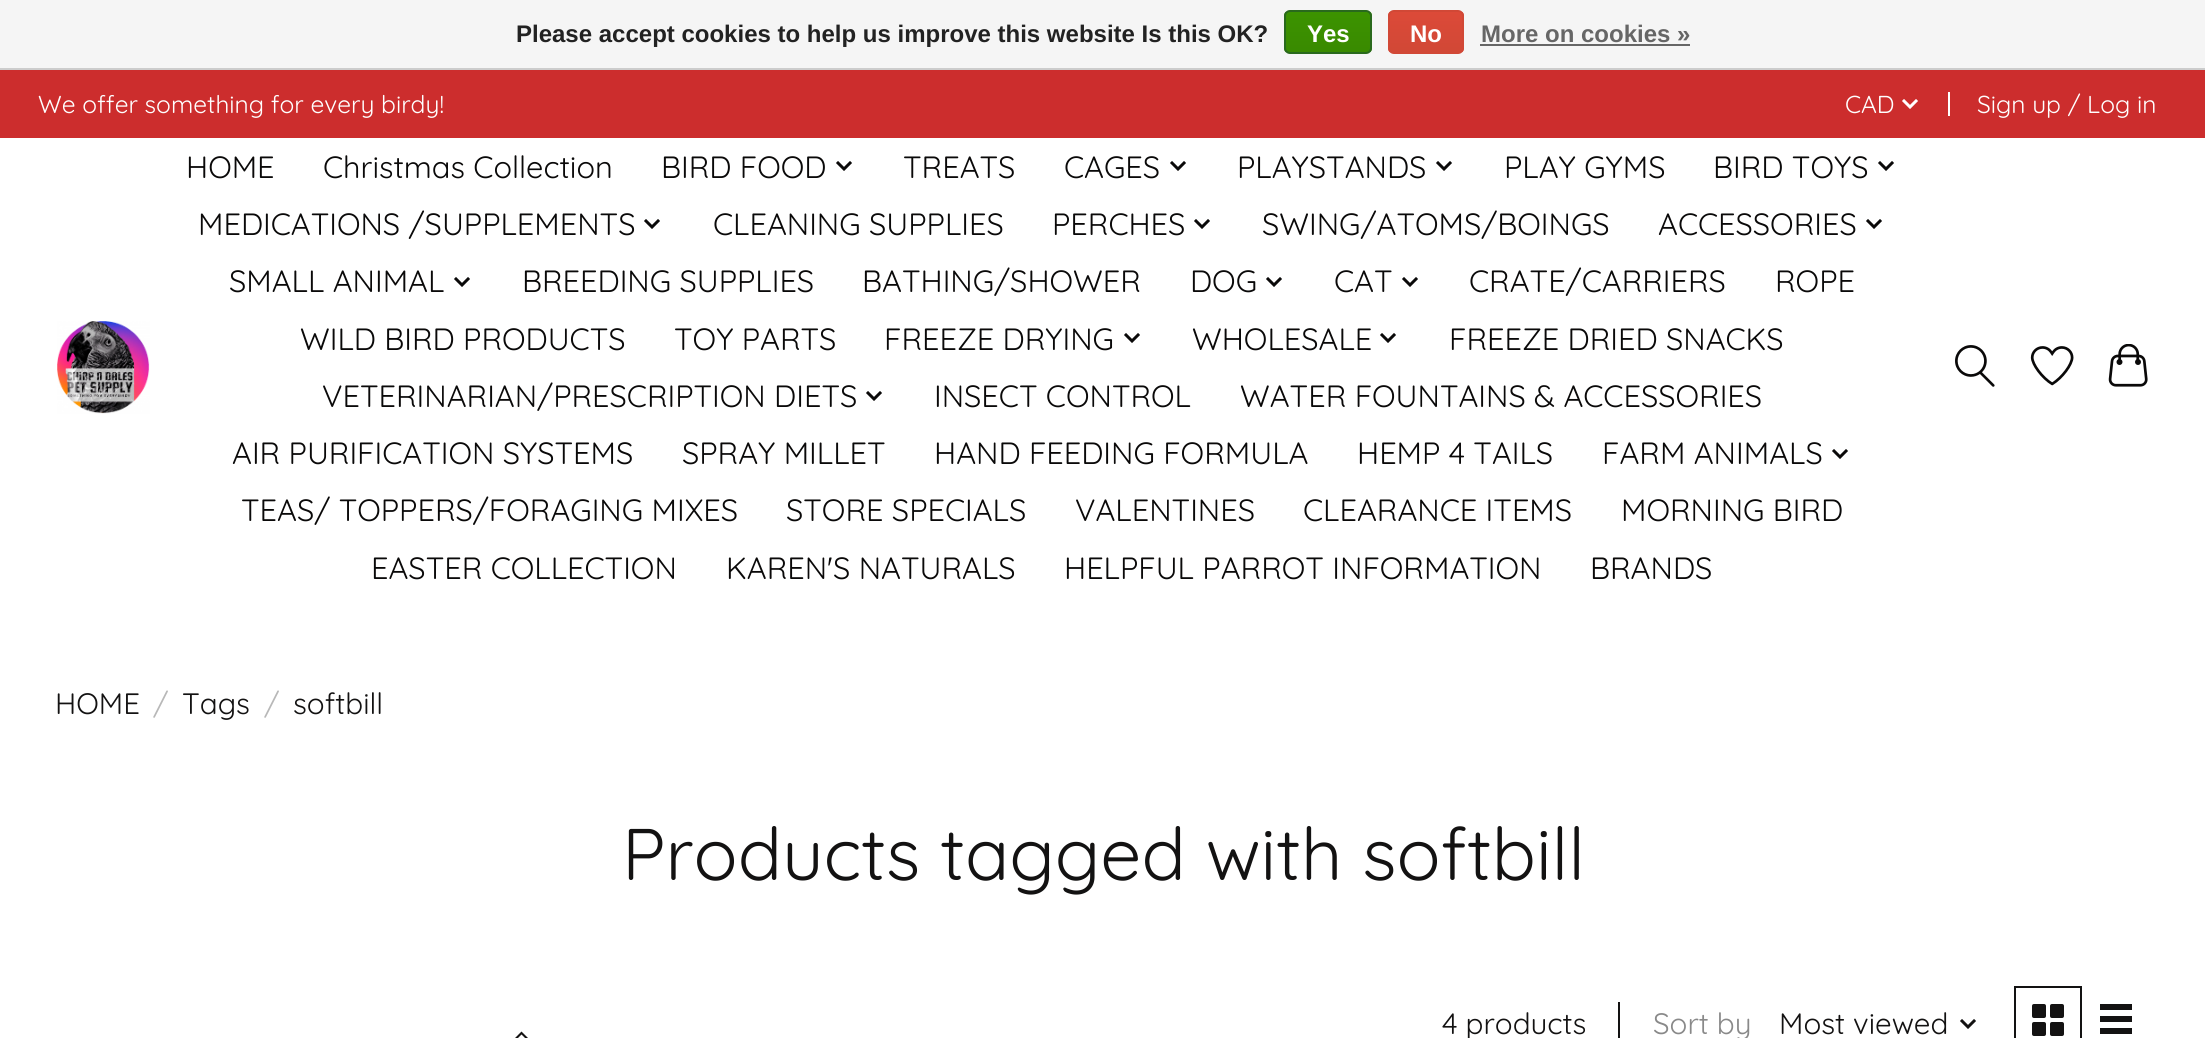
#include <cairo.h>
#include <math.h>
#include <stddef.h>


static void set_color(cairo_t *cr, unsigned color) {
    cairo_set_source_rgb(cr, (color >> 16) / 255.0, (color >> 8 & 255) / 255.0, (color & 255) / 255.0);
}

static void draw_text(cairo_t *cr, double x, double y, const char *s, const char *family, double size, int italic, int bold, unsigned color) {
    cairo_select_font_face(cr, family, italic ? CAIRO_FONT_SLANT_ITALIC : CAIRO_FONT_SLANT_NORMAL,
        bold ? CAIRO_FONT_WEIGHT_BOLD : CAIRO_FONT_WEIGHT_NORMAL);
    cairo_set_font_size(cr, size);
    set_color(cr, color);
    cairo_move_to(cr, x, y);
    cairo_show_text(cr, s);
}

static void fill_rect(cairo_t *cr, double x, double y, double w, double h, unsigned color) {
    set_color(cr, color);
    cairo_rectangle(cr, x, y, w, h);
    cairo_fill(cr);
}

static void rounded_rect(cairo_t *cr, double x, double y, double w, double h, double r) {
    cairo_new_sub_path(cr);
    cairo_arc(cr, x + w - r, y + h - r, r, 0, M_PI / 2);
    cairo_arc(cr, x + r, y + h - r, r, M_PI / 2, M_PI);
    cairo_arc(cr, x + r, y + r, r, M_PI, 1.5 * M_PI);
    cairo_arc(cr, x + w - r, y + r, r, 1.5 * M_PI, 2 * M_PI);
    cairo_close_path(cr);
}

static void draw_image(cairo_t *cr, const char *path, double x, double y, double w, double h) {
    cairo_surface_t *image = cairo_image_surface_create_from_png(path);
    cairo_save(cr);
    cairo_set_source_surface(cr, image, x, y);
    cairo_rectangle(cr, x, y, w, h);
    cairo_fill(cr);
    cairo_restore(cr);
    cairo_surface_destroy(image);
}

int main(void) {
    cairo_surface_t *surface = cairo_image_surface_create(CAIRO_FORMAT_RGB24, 2205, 1038);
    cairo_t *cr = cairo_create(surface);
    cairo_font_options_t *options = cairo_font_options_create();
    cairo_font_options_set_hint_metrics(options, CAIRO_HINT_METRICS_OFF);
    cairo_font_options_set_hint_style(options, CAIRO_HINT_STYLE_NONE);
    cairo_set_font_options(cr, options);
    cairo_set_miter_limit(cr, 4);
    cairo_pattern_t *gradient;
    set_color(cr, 0xFFFFFF);
    cairo_paint(cr);
    fill_rect(cr, 0, 0, 2205, 68, 0xF5F5F5);
    fill_rect(cr, 0, 68, 2205, 2, 0xCCCCCC);
    draw_text(cr, 516, 42, "Please accept cookies to help us improve this website Is this OK?", "Liberation Sans", 24, 0, 1, 0x222222);
    cairo_save(cr);
    rounded_rect(cr, 1284, 10, 88, 44, 6);
    cairo_clip(cr);
    gradient = cairo_pattern_create_linear(1328, 12, 1328, 52);
    cairo_pattern_add_color_stop_rgba(gradient, 0, 0.235, 0.576, 0, 1);
    cairo_pattern_add_color_stop_rgba(gradient, 1, 0.224, 0.541, 0, 1);
    cairo_set_source(cr, gradient);
    cairo_pattern_destroy(gradient);
    cairo_rectangle(cr, 1284, 12, 88, 40);
    cairo_fill(cr);
    cairo_restore(cr);
    rounded_rect(cr, 1285, 11, 86, 42, 5);
    set_color(cr, 0x29691D);
    cairo_stroke(cr);
    draw_text(cr, 1307, 42, "Yes", "Liberation Sans", 24, 0, 1, 0xFFFFFF);
    cairo_save(cr);
    rounded_rect(cr, 1388, 10, 76, 44, 6);
    cairo_clip(cr);
    gradient = cairo_pattern_create_linear(1426, 12, 1426, 52);
    cairo_pattern_add_color_stop_rgba(gradient, 0, 0.863, 0.29, 0.22, 1);
    cairo_pattern_add_color_stop_rgba(gradient, 1, 0.82, 0.282, 0.212, 1);
    cairo_set_source(cr, gradient);
    cairo_pattern_destroy(gradient);
    cairo_rectangle(cr, 1388, 12, 76, 40);
    cairo_fill(cr);
    cairo_restore(cr);
    rounded_rect(cr, 1389, 11, 74, 42, 5);
    set_color(cr, 0xD14836);
    cairo_stroke(cr);
    draw_text(cr, 1410, 42, "No", "Liberation Sans", 24, 0, 1, 0xFFFFFF);
    draw_text(cr, 1481, 42, "More on cookies »", "Liberation Sans", 24, 0, 1, 0x666666);
    fill_rect(cr, 1480, 44, 210, 2, 0x666666);
    fill_rect(cr, 0, 70, 2205, 68, 0xCC2D2D);
    draw_text(cr, 38, 113, "We offer something for every birdy!", "Quicksand", 24.5, 0, 0, 0xFFFFFF);
    draw_text(cr, 1845, 113, "CAD", "Quicksand", 24.5, 0, 0, 0xFFFFFF);
    draw_image(cr, "assets/img1.png", 1902, 99, 16, 10);
    fill_rect(cr, 1948, 92, 2, 24, 0xFFFFFF);
    draw_text(cr, 1977, 113, "Sign up / Log in", "Quicksand", 24.5, 0, 0, 0xFFFFFF);
    draw_image(cr, "assets/img2.png", 57, 321, 93, 93);
    draw_text(cr, 186, 178, "HOME", "Quicksand", 30.75, 0, 0, 0x0A0909);
    draw_text(cr, 323, 178, "Christmas Collection", "Quicksand", 30.75, 0, 0, 0x0A0909);
    draw_text(cr, 661, 178, "BIRD FOOD", "Quicksand", 30.75, 0, 0, 0x0A0909);
    draw_image(cr, "assets/img3.png", 836, 161, 16, 10);
    draw_text(cr, 903, 178, "TREATS", "Quicksand", 30.75, 0, 0, 0x0A0909);
    draw_text(cr, 1064, 178, "CAGES", "Quicksand", 30.75, 0, 0, 0x0A0909);
    draw_image(cr, "assets/img3.png", 1170, 161, 16, 10);
    draw_text(cr, 1237, 178, "PLAYSTANDS", "Quicksand", 30.75, 0, 0, 0x0A0909);
    draw_image(cr, "assets/img3.png", 1436, 161, 16, 10);
    draw_text(cr, 1504, 178, "PLAY GYMS", "Quicksand", 30.75, 0, 0, 0x0A0909);
    draw_text(cr, 1713, 178, "BIRD TOYS", "Quicksand", 30.75, 0, 0, 0x0A0909);
    draw_image(cr, "assets/img3.png", 1878, 161, 16, 10);
    draw_text(cr, 198, 235, "MEDICATIONS /SUPPLEMENTS", "Quicksand", 30.75, 0, 0, 0x0A0909);
    draw_image(cr, "assets/img3.png", 644, 219, 16, 10);
    draw_text(cr, 713, 235, "CLEANING SUPPLIES", "Quicksand", 30.75, 0, 0, 0x0A0909);
    draw_text(cr, 1052, 235, "PERCHES", "Quicksand", 30.75, 0, 0, 0x0A0909);
    draw_image(cr, "assets/img3.png", 1194, 219, 16, 10);
    draw_text(cr, 1262, 235, "SWING/ATOMS/BOINGS", "Quicksand", 30.75, 0, 0, 0x0A0909);
    draw_text(cr, 1658, 235, "ACCESSORIES", "Quicksand", 30.75, 0, 0, 0x0A0909);
    draw_image(cr, "assets/img3.png", 1866, 219, 16, 10);
    draw_text(cr, 229, 292, "SMALL ANIMAL", "Quicksand", 30.75, 0, 0, 0x0A0909);
    draw_image(cr, "assets/img3.png", 454, 277, 16, 10);
    draw_text(cr, 522, 292, "BREEDING SUPPLIES", "Quicksand", 30.75, 0, 0, 0x0A0909);
    draw_text(cr, 862, 292, "BATHING/SHOWER", "Quicksand", 30.75, 0, 0, 0x0A0909);
    draw_text(cr, 1190, 292, "DOG", "Quicksand", 30.75, 0, 0, 0x0A0909);
    draw_image(cr, "assets/img3.png", 1266, 277, 16, 10);
    draw_text(cr, 1334, 292, "CAT", "Quicksand", 30.75, 0, 0, 0x0A0909);
    draw_image(cr, "assets/img3.png", 1402, 277, 16, 10);
    draw_text(cr, 1469, 292, "CRATE/CARRIERS", "Quicksand", 30.75, 0, 0, 0x0A0909);
    draw_text(cr, 1775, 292, "ROPE", "Quicksand", 30.75, 0, 0, 0x0A0909);
    draw_text(cr, 300, 350, "WILD BIRD PRODUCTS", "Quicksand", 30.75, 0, 0, 0x0A0909);
    draw_text(cr, 674, 350, "TOY PARTS", "Quicksand", 30.75, 0, 0, 0x0A0909);
    draw_text(cr, 884, 350, "FREEZE DRYING", "Quicksand", 30.75, 0, 0, 0x0A0909);
    draw_image(cr, "assets/img3.png", 1124, 333, 16, 10);
    draw_text(cr, 1192, 350, "WHOLESALE", "Quicksand", 30.75, 0, 0, 0x0A0909);
    draw_image(cr, "assets/img3.png", 1380, 333, 16, 10);
    draw_text(cr, 1449, 350, "FREEZE DRIED SNACKS", "Quicksand", 30.75, 0, 0, 0x0A0909);
    draw_text(cr, 322, 407, "VETERINARIAN/PRESCRIPTION DIETS", "Quicksand", 30.75, 0, 0, 0x0A0909);
    draw_image(cr, "assets/img3.png", 866, 391, 16, 10);
    draw_text(cr, 934, 407, "INSECT CONTROL", "Quicksand", 30.75, 0, 0, 0x0A0909);
    draw_text(cr, 1240, 407, "WATER FOUNTAINS & ACCESSORIES", "Quicksand", 30.75, 0, 0, 0x0A0909);
    draw_text(cr, 232, 464, "AIR PURIFICATION SYSTEMS", "Quicksand", 30.75, 0, 0, 0x0A0909);
    draw_text(cr, 682, 464, "SPRAY MILLET", "Quicksand", 30.75, 0, 0, 0x0A0909);
    draw_text(cr, 934, 464, "HAND FEEDING FORMULA", "Quicksand", 30.75, 0, 0, 0x0A0909);
    draw_text(cr, 1357, 464, "HEMP 4 TAILS", "Quicksand", 30.75, 0, 0, 0x0A0909);
    draw_text(cr, 1602, 464, "FARM ANIMALS", "Quicksand", 30.75, 0, 0, 0x0A0909);
    draw_image(cr, "assets/img3.png", 1832, 449, 16, 10);
    draw_text(cr, 241, 521, "TEAS/ TOPPERS/FORAGING MIXES", "Quicksand", 30.75, 0, 0, 0x0A0909);
    draw_text(cr, 786, 521, "STORE SPECIALS", "Quicksand", 30.75, 0, 0, 0x0A0909);
    draw_text(cr, 1075, 521, "VALENTINES", "Quicksand", 30.75, 0, 0, 0x0A0909);
    draw_text(cr, 1303, 521, "CLEARANCE ITEMS", "Quicksand", 30.75, 0, 0, 0x0A0909);
    draw_text(cr, 1621, 521, "MORNING BIRD", "Quicksand", 30.75, 0, 0, 0x0A0909);
    draw_text(cr, 371, 579, "EASTER COLLECTION", "Quicksand", 30.75, 0, 0, 0x0A0909);
    draw_text(cr, 726, 579, "KAREN'S NATURALS", "Quicksand", 30.75, 0, 0, 0x0A0909);
    draw_text(cr, 1064, 579, "HELPFUL PARROT INFORMATION", "Quicksand", 30.75, 0, 0, 0x0A0909);
    draw_text(cr, 1590, 579, "BRANDS", "Quicksand", 30.75, 0, 0, 0x0A0909);
    draw_image(cr, "assets/img4.png", 1955, 345, 40, 42);
    draw_image(cr, "assets/img5.png", 2030, 346, 44, 40);
    draw_image(cr, "assets/img6.png", 2108, 344, 40, 43);
    draw_text(cr, 55, 714, "HOME", "Quicksand", 29.5, 0, 0, 0x131212);
    draw_text(cr, 153, 714, "/", "Quicksand", 29.5, 0, 0, 0xB8B8B8);
    draw_text(cr, 182, 714, "Tags", "Quicksand", 29.5, 0, 0, 0x131212);
    draw_text(cr, 264, 714, "/", "Quicksand", 29.5, 0, 0, 0xB8B8B8);
    draw_text(cr, 293, 714, "softbill", "Quicksand", 29.5, 0, 0, 0x131212);
    draw_text(cr, 622, 880, "Products tagged with softbill", "Quicksand", 73, 0, 0, 0x131212);
    cairo_new_path(cr);
    cairo_move_to(cr, 513, 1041.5);
    cairo_line_to(cr, 521.5, 1033);
    cairo_move_to(cr, 530, 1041.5);
    cairo_line_to(cr, 521.5, 1033);
    cairo_set_line_width(cr, 2.1);
    cairo_set_line_cap(cr, CAIRO_LINE_CAP_SQUARE);
    cairo_stroke(cr);
    draw_text(cr, 1442, 1034, "4 products", "Quicksand", 29.5, 0, 0, 0x131212);
    fill_rect(cr, 1618, 1002, 2, 36, 0x131212);
    draw_text(cr, 1653, 1034, "Sort by", "Quicksand", 29.5, 0, 0, 0x898989);
    draw_text(cr, 1779, 1034, "Most viewed", "Quicksand", 29.5, 0, 0, 0x131212);
    draw_image(cr, "assets/img7.png", 1960, 1019, 16, 10);
    cairo_rectangle(cr, 2015, 987, 66, 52);
    cairo_set_line_width(cr, 2);
    cairo_set_line_cap(cr, CAIRO_LINE_CAP_BUTT);
    cairo_stroke(cr);
    draw_image(cr, "assets/img8.png", 2032, 1004, 32, 32);
    fill_rect(cr, 2100, 1004, 32, 6, 0x131212);
    fill_rect(cr, 2100, 1016, 32, 6, 0x131212);
    fill_rect(cr, 2100, 1028, 32, 6, 0x131212);
    cairo_surface_write_to_png(surface, "output.png");
    cairo_font_options_destroy(options);
    cairo_destroy(cr);
    cairo_surface_destroy(surface);
    return 0;
}
